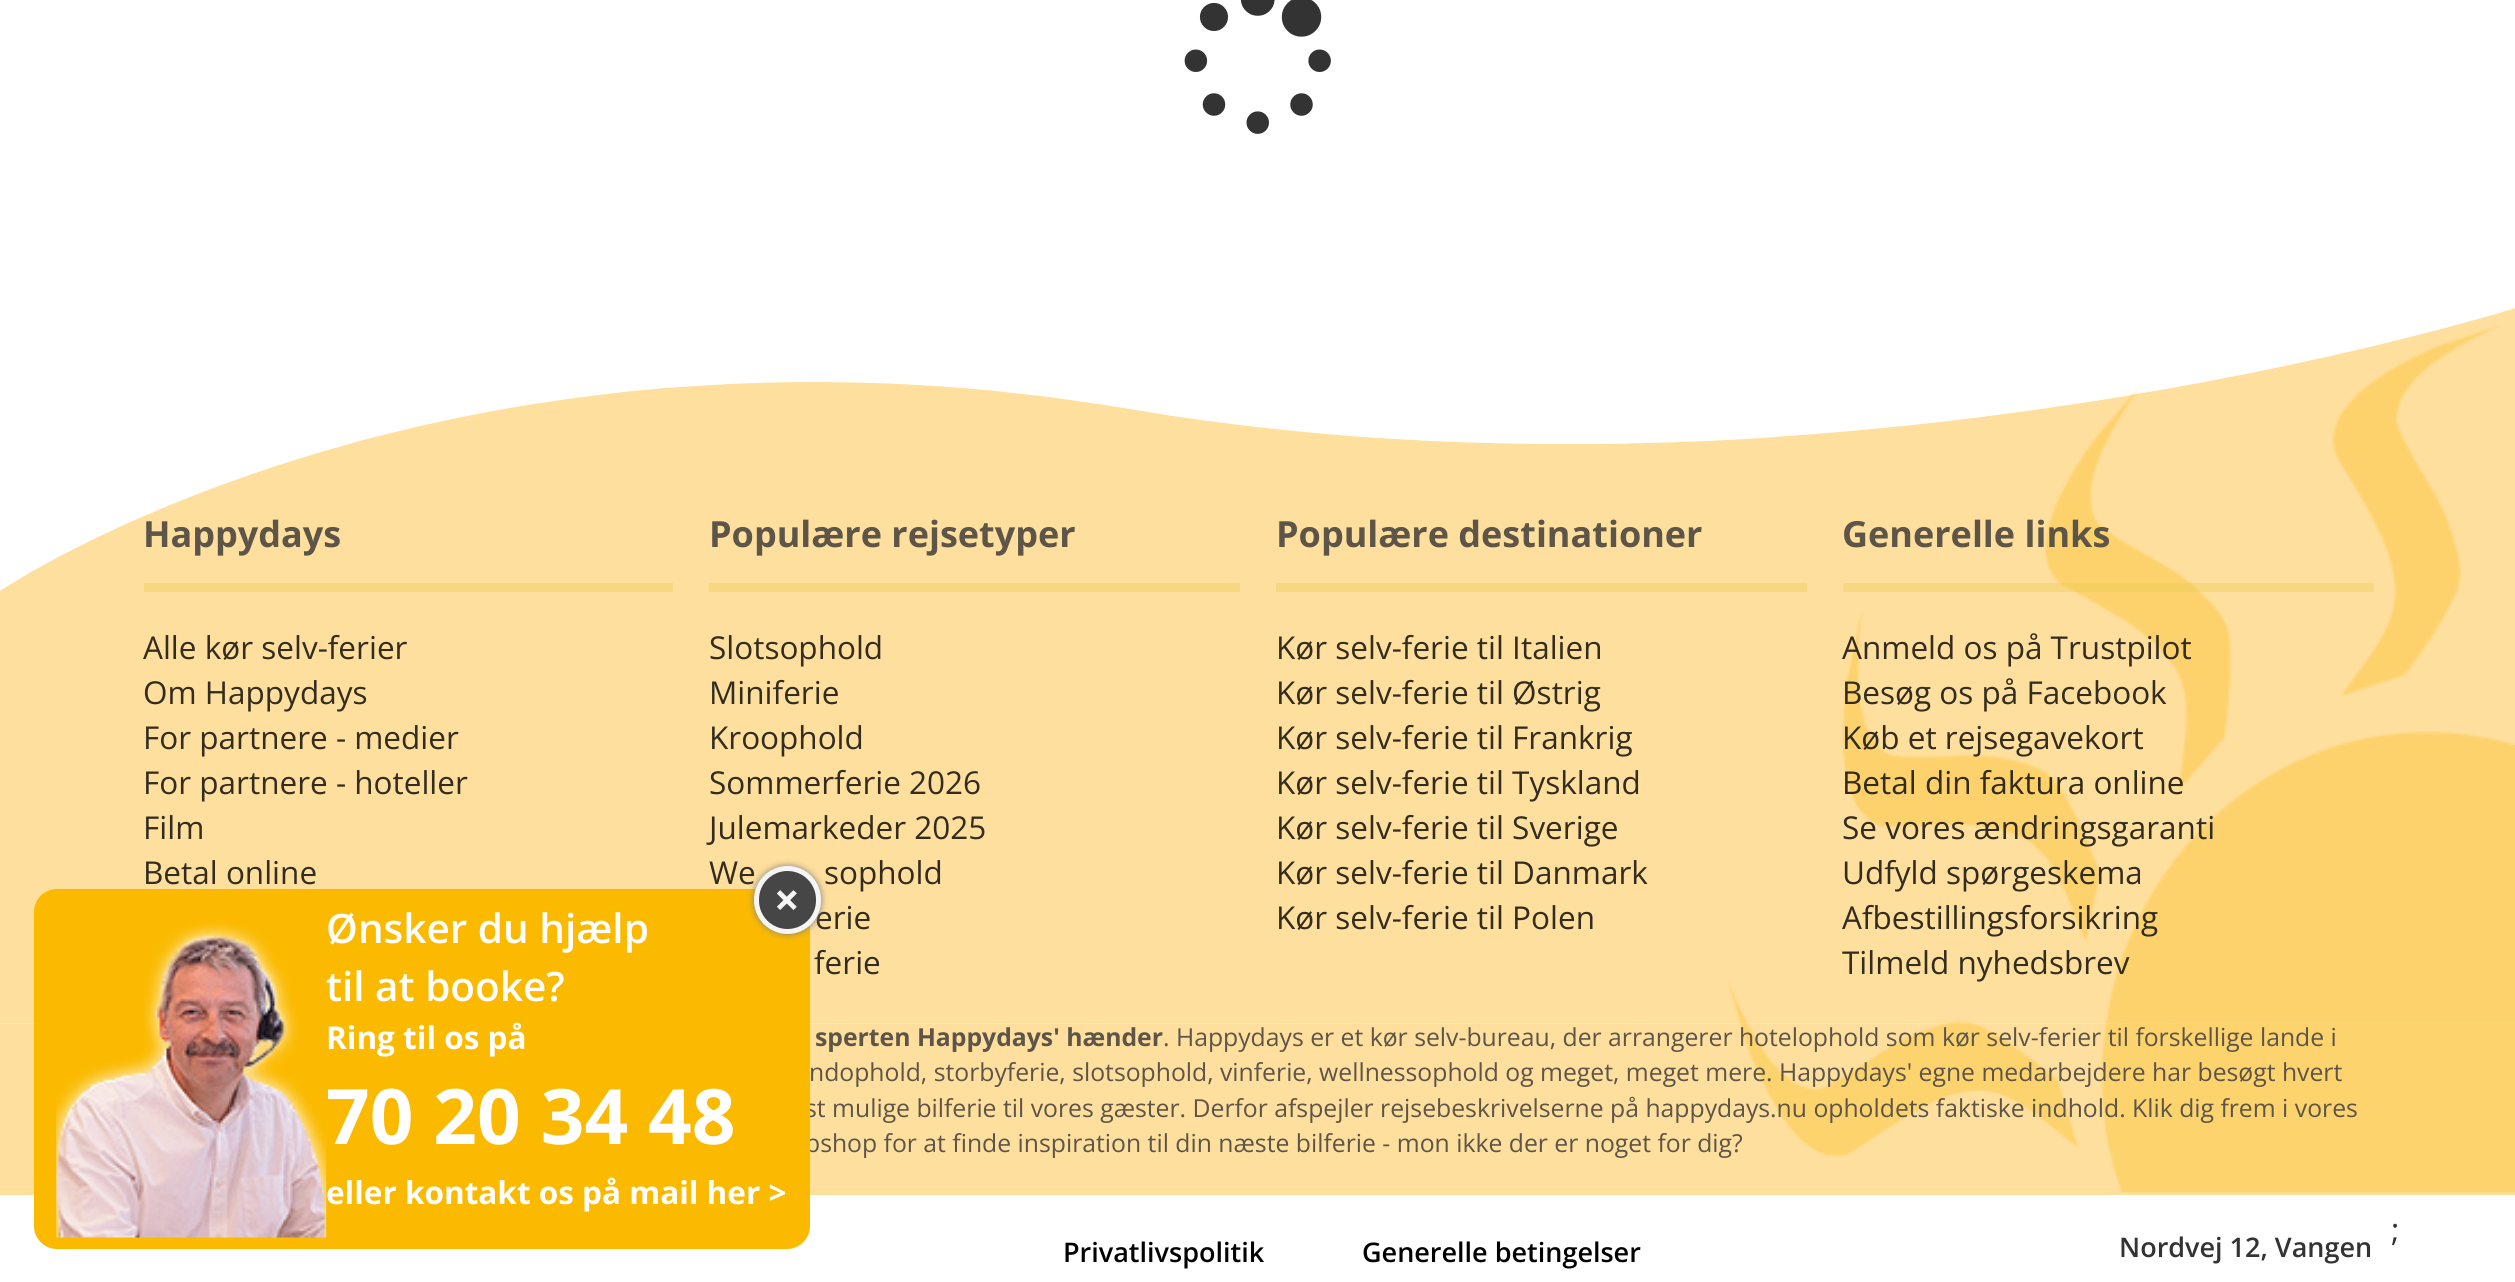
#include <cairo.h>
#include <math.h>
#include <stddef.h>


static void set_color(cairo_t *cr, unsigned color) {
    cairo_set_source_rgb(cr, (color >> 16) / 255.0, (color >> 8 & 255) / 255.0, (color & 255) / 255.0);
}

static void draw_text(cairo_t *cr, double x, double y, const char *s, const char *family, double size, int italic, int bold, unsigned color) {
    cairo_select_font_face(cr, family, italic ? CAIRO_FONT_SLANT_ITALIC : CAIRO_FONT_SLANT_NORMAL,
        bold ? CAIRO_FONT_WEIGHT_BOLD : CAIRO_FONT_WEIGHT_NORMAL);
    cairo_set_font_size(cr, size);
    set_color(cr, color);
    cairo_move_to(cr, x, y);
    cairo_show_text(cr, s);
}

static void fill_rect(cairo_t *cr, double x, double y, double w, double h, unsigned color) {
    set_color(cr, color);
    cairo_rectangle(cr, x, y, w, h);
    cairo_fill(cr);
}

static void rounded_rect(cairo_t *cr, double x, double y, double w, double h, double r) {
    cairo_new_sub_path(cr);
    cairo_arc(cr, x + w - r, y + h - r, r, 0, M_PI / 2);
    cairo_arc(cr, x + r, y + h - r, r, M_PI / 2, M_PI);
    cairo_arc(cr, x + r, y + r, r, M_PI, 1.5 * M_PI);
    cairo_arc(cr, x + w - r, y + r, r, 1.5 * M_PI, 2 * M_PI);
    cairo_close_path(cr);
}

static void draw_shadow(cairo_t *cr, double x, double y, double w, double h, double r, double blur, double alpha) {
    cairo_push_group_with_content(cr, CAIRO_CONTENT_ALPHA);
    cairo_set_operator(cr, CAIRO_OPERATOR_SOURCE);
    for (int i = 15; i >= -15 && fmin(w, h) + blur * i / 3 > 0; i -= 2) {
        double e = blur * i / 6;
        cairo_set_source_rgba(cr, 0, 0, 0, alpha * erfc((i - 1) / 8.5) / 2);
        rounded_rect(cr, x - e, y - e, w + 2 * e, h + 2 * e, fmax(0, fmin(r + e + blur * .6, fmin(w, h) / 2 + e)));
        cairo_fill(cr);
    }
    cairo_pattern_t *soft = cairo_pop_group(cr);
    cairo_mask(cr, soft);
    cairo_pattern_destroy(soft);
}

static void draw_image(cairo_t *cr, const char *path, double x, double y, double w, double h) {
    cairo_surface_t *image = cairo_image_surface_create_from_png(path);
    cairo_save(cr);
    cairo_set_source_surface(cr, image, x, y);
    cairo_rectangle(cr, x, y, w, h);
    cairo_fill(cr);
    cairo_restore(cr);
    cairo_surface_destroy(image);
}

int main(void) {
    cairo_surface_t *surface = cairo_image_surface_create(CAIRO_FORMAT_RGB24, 2515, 1282);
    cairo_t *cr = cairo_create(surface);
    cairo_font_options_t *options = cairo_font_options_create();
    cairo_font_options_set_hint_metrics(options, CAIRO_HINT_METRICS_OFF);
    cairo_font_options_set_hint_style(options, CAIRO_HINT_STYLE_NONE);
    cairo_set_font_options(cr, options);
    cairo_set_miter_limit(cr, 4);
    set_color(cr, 0xFFFFFF);
    cairo_paint(cr);
    fill_rect(cr, 0, 1023, 2515, 172, 0xFFDF9D);
    draw_image(cr, "assets/img1.png", 0, 308, 2515, 885);
    draw_text(cr, 143, 547, "Happydays", "Open Sans", 36, 0, 1, 0x5C5548);
    fill_rect(cr, 144, 583, 529, 9, 0xF7D77F);
    draw_text(cr, 143, 659, "Alle kør selv-ferier", "Open Sans", 31.5, 0, 0, 0x332D1F);
    draw_text(cr, 143, 704, "Om Happydays", "Open Sans", 31.5, 0, 0, 0x332D1F);
    draw_text(cr, 143, 749, "For partnere - medier", "Open Sans", 31.5, 0, 0, 0x332D1F);
    draw_text(cr, 143, 794, "For partnere - hoteller", "Open Sans", 31.5, 0, 0, 0x332D1F);
    draw_text(cr, 143, 839, "Film", "Open Sans", 31.5, 0, 0, 0x332D1F);
    draw_text(cr, 143, 884, "Betal online", "Open Sans", 31.5, 0, 0, 0x332D1F);
    draw_text(cr, 709, 547, "Populære rejsetyper", "Open Sans", 36, 0, 1, 0x5C5548);
    fill_rect(cr, 709, 583, 531, 9, 0xF7D77F);
    draw_text(cr, 709, 659, "Slotsophold", "Open Sans", 31.5, 0, 0, 0x332D1F);
    draw_text(cr, 709, 704, "Miniferie", "Open Sans", 31.5, 0, 0, 0x332D1F);
    draw_text(cr, 709, 749, "Kroophold", "Open Sans", 31.5, 0, 0, 0x332D1F);
    draw_text(cr, 709, 794, "Sommerferie 2026", "Open Sans", 31.5, 0, 0, 0x332D1F);
    draw_text(cr, 709, 839, "Julemarkeder 2025", "Open Sans", 31.5, 0, 0, 0x332D1F);
    draw_text(cr, 709, 884, "We", "Open Sans", 31.5, 0, 0, 0x332D1F);
    draw_text(cr, 824, 884, "sophold", "Open Sans", 31.5, 0, 0, 0x332D1F);
    draw_text(cr, 815, 929, "erie", "Open Sans", 31.5, 0, 0, 0x332D1F);
    draw_text(cr, 814, 974, "ferie", "Open Sans", 31.5, 0, 0, 0x332D1F);
    draw_text(cr, 1276, 547, "Populære destinationer", "Open Sans", 36, 0, 1, 0x5C5548);
    fill_rect(cr, 1276, 583, 531, 9, 0xF7D77F);
    draw_text(cr, 1276, 659, "Kør selv-ferie til Italien", "Open Sans", 31.5, 0, 0, 0x332D1F);
    draw_text(cr, 1276, 704, "Kør selv-ferie til Østrig", "Open Sans", 31.5, 0, 0, 0x332D1F);
    draw_text(cr, 1276, 749, "Kør selv-ferie til Frankrig", "Open Sans", 31.5, 0, 0, 0x332D1F);
    draw_text(cr, 1276, 794, "Kør selv-ferie til Tyskland", "Open Sans", 31.5, 0, 0, 0x332D1F);
    draw_text(cr, 1276, 839, "Kør selv-ferie til Sverige", "Open Sans", 31.5, 0, 0, 0x332D1F);
    draw_text(cr, 1276, 884, "Kør selv-ferie til Danmark", "Open Sans", 31.5, 0, 0, 0x332D1F);
    draw_text(cr, 1276, 929, "Kør selv-ferie til Polen", "Open Sans", 31.5, 0, 0, 0x332D1F);
    draw_text(cr, 1842, 547, "Generelle links", "Open Sans", 36, 0, 1, 0x5C5548);
    cairo_set_source_rgba(cr, 0.925, 0.796, 0.325, 0.4);
    cairo_rectangle(cr, 1843, 583, 531, 9);
    cairo_fill(cr);
    draw_text(cr, 1842, 659, "Anmeld os på Trustpilot", "Open Sans", 31.5, 0, 0, 0x332D1F);
    draw_text(cr, 1842, 704, "Besøg os på Facebook", "Open Sans", 31.5, 0, 0, 0x332D1F);
    draw_text(cr, 1842, 749, "Køb et rejsegavekort", "Open Sans", 31.5, 0, 0, 0x332D1F);
    draw_text(cr, 1842, 794, "Betal din faktura online", "Open Sans", 31.5, 0, 0, 0x332B19);
    draw_text(cr, 1842, 839, "Se vores ændringsgaranti", "Open Sans", 31.5, 0, 0, 0x332D1F);
    draw_text(cr, 1842, 884, "Udfyld spørgeskema", "Open Sans", 31.5, 0, 0, 0x332D1F);
    draw_text(cr, 1842, 929, "Afbestillingsforsikring", "Open Sans", 31.5, 0, 0, 0x332D1F);
    draw_text(cr, 1842, 974, "Tilmeld nyhedsbrev", "Open Sans", 31.5, 0, 0, 0x332D1F);
    draw_text(cr, 815, 1046, "sperten Happydays' hænder", "Open Sans", 24.75, 0, 1, 0x5C5548);
    draw_text(cr, 1163, 1046, ". Happydays er et kør selv-bureau, der arrangerer hotelophold som kør selv-ferier til forskellige lande i", "Open Sans", 24.75, 0, 0, 0x5C5548);
    draw_text(cr, 809, 1081, "ndophold, storbyferie, slotsophold, vinferie, wellnessophold og meget, meget mere. Happydays' egne medarbejdere har besøgt hvert", "Open Sans", 24.75, 0, 0, 0x5C5548);
    draw_text(cr, 805, 1117, "st mulige bilferie til vores gæster. Derfor afspejler rejsebeskrivelserne på happydays.nu opholdets faktiske indhold. Klik dig frem i vores", "Open Sans", 24.75, 0, 0, 0x5C5548);
    draw_text(cr, 805, 1152, "bshop for at finde inspiration til din næste bilferie - mon ikke der er noget for dig?", "Open Sans", 24.75, 0, 0, 0x5C5548);
    draw_text(cr, 1063, 1262, "Privatlivspolitik", "Open Sans SemiBold", 27, 0, 0, 0x000000);
    draw_text(cr, 1362, 1262, "Generelle betingelser", "Open Sans SemiBold", 27, 0, 0, 0x000000);
    draw_text(cr, 2119, 1257, "Nordvej 12, Vangen", "Open Sans SemiBold", 27, 0, 0, 0x333333);
    draw_text(cr, 2391, 1241, ";", "Open Sans", 31.5, 0, 0, 0x333333);
    draw_image(cr, "assets/img2.png", 1184, 0, 147, 134);
    set_color(cr, 0xFBBA00);
    rounded_rect(cr, 34, 889, 776, 360, 23);
    cairo_fill(cr);
    set_color(cr, 0x808080);
    draw_shadow(cr, 754, 866, 67, 68, 33.5, 3.5, 1);
    set_color(cr, 0x464646);
    rounded_rect(cr, 756.5, 868.5, 62, 63, 31);
    cairo_fill_preserve(cr);
    set_color(cr, 0xF5F5F5);
    cairo_set_line_width(cr, 5);
    cairo_stroke(cr);
    draw_text(cr, 774, 916, "×", "Open Sans", 45, 0, 1, 0xF5F5F5);
    draw_image(cr, "assets/img3.png", 56, 922, 271, 316);
    draw_text(cr, 326, 943, "Ønsker du hjælp", "Open Sans SemiBold", 40.5, 0, 0, 0xFFFFFF);
    draw_text(cr, 326, 1001, "til at booke?", "Open Sans SemiBold", 40.5, 0, 0, 0xFFFFFF);
    draw_text(cr, 326, 1049, "Ring til os på", "Open Sans", 31.5, 0, 1, 0xFFFFFF);
    draw_text(cr, 326, 1144, "70 20 34 48", "Open Sans", 76.5, 0, 1, 0xFFFFFF);
    draw_text(cr, 326, 1204, "eller kontakt os på mail her >", "Open Sans", 31.5, 0, 1, 0xFFFFFF);
    cairo_surface_write_to_png(surface, "output.png");
    cairo_font_options_destroy(options);
    cairo_destroy(cr);
    cairo_surface_destroy(surface);
    return 0;
}
